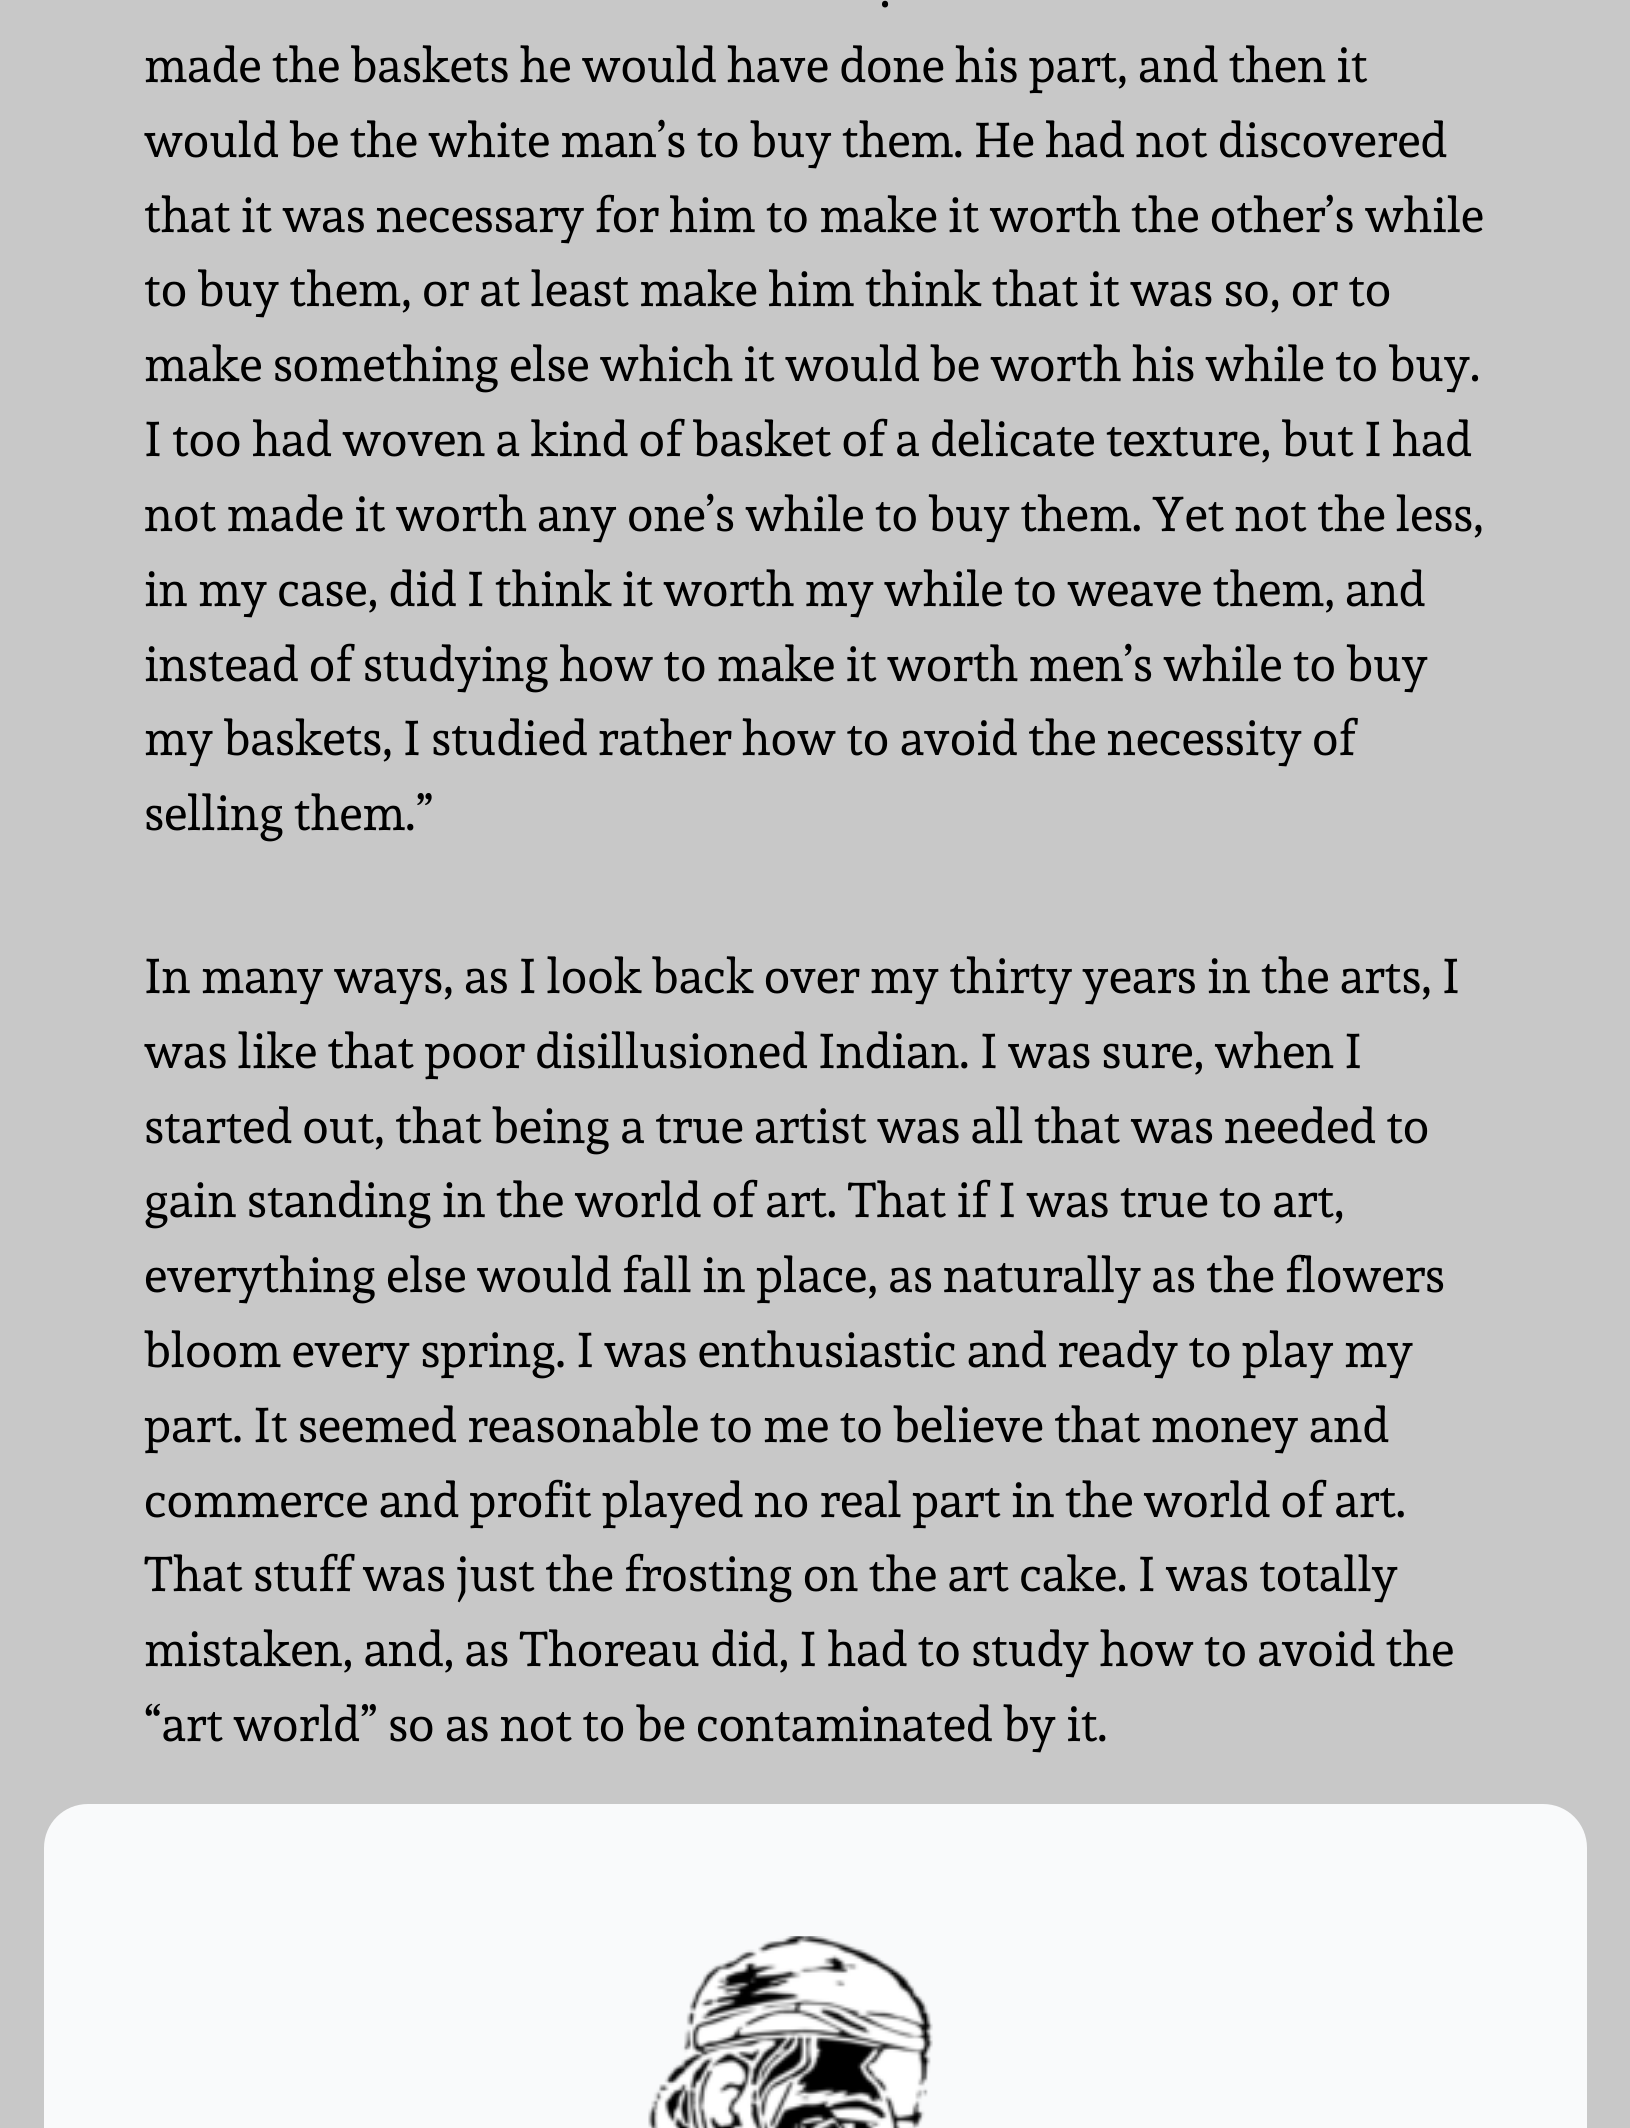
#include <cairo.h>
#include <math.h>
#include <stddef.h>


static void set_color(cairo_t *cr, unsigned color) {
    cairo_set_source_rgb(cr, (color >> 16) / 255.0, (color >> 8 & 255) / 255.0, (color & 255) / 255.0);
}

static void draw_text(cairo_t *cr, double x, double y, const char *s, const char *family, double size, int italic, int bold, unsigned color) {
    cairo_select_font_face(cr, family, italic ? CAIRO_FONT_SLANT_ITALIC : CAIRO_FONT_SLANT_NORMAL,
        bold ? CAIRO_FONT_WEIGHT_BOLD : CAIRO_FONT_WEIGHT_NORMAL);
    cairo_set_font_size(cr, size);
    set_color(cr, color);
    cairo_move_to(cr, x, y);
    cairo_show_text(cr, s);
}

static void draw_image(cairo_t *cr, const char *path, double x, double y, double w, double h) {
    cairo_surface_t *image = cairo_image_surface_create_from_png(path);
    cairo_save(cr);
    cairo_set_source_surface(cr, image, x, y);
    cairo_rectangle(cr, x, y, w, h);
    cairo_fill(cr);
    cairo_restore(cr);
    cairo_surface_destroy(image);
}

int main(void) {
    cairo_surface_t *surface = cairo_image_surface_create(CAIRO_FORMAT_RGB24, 1630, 2128);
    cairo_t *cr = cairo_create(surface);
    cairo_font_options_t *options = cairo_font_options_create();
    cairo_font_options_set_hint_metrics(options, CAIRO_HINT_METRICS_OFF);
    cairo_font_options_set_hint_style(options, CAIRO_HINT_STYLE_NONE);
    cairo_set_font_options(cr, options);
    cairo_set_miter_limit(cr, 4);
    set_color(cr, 0xC8C8C8);
    cairo_paint(cr);
    draw_text(cr, 880, 7, ".", "Sura", 48.4, 0, 0, 0x000000);
    draw_text(cr, 144, 82, "made the baskets he would have done his part, and then it", "Sura", 48.4, 0, 0, 0x000000);
    draw_text(cr, 144, 157, "would be the white man’s to buy them. He had not discovered", "Sura", 48.4, 0, 0, 0x000000);
    draw_text(cr, 144, 232, "that it was necessary for him to make it worth the other’s while", "Sura", 48.4, 0, 0, 0x000000);
    draw_text(cr, 144, 306, "to buy them, or at least make him think that it was so, or to", "Sura", 48.4, 0, 0, 0x000000);
    draw_text(cr, 144, 381, "make something else which it would be worth his while to buy.", "Sura", 48.4, 0, 0, 0x000000);
    draw_text(cr, 144, 456, "I too had woven a kind of basket of a delicate texture, but I had", "Sura", 48.4, 0, 0, 0x000000);
    draw_text(cr, 144, 531, "not made it worth any one’s while to buy them. Yet not the less,", "Sura", 48.4, 0, 0, 0x000000);
    draw_text(cr, 144, 606, "in my case, did I think it worth my while to weave them, and", "Sura", 48.4, 0, 0, 0x000000);
    draw_text(cr, 144, 681, "instead of studying how to make it worth men’s while to buy", "Sura", 48.4, 0, 0, 0x000000);
    draw_text(cr, 144, 755, "my baskets, I studied rather how to avoid the necessity of", "Sura", 48.4, 0, 0, 0x000000);
    draw_text(cr, 144, 830, "selling them.”", "Sura", 48.4, 0, 0, 0x000000);
    draw_text(cr, 144, 993, "In many ways, as I look back over my thirty years in the arts, I", "Sura", 48.4, 0, 0, 0x000000);
    draw_text(cr, 144, 1068, "was like that poor disillusioned Indian. I was sure, when I", "Sura", 48.4, 0, 0, 0x000000);
    draw_text(cr, 144, 1143, "started out, that being a true artist was all that was needed to", "Sura", 48.4, 0, 0, 0x000000);
    draw_text(cr, 144, 1217, "gain standing in the world of art. That if I was true to art,", "Sura", 48.4, 0, 0, 0x000000);
    draw_text(cr, 144, 1292, "everything else would fall in place, as naturally as the flowers", "Sura", 48.4, 0, 0, 0x000000);
    draw_text(cr, 144, 1367, "bloom every spring. I was enthusiastic and ready to play my", "Sura", 48.4, 0, 0, 0x000000);
    draw_text(cr, 144, 1442, "part. It seemed reasonable to me to believe that money and", "Sura", 48.4, 0, 0, 0x000000);
    draw_text(cr, 144, 1517, "commerce and profit played no real part in the world of art.", "Sura", 48.4, 0, 0, 0x000000);
    draw_text(cr, 144, 1591, "That stuff was just the frosting on the art cake. I was totally", "Sura", 48.4, 0, 0, 0x000000);
    draw_text(cr, 144, 1666, "mistaken, and, as Thoreau did, I had to study how to avoid the", "Sura", 48.4, 0, 0, 0x000000);
    draw_text(cr, 144, 1741, "“art world” so as not to be contaminated by it.", "Sura", 48.4, 0, 0, 0x000000);
    set_color(cr, 0xF9FAFB);
    cairo_new_path(cr);
    cairo_move_to(cr, 88, 1804);
    cairo_line_to(cr, 1543, 1804);
    cairo_curve_to(cr, 1567.5, 1804, 1587, 1823.5, 1587, 1848);
    cairo_line_to(cr, 1587, 2128);
    cairo_curve_to(cr, 1587, 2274, 1469, 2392, 1323, 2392);
    cairo_line_to(cr, 88, 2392);
    cairo_curve_to(cr, 63.5, 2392, 44, 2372.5, 44, 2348);
    cairo_line_to(cr, 44, 1848);
    cairo_curve_to(cr, 44, 1823.5, 63.5, 1804, 88, 1804);
    cairo_close_path(cr);
    cairo_fill(cr);
    draw_image(cr, "assets/img1.png", 648, 1936, 285, 192);
    cairo_surface_write_to_png(surface, "output.png");
    cairo_font_options_destroy(options);
    cairo_destroy(cr);
    cairo_surface_destroy(surface);
    return 0;
}
